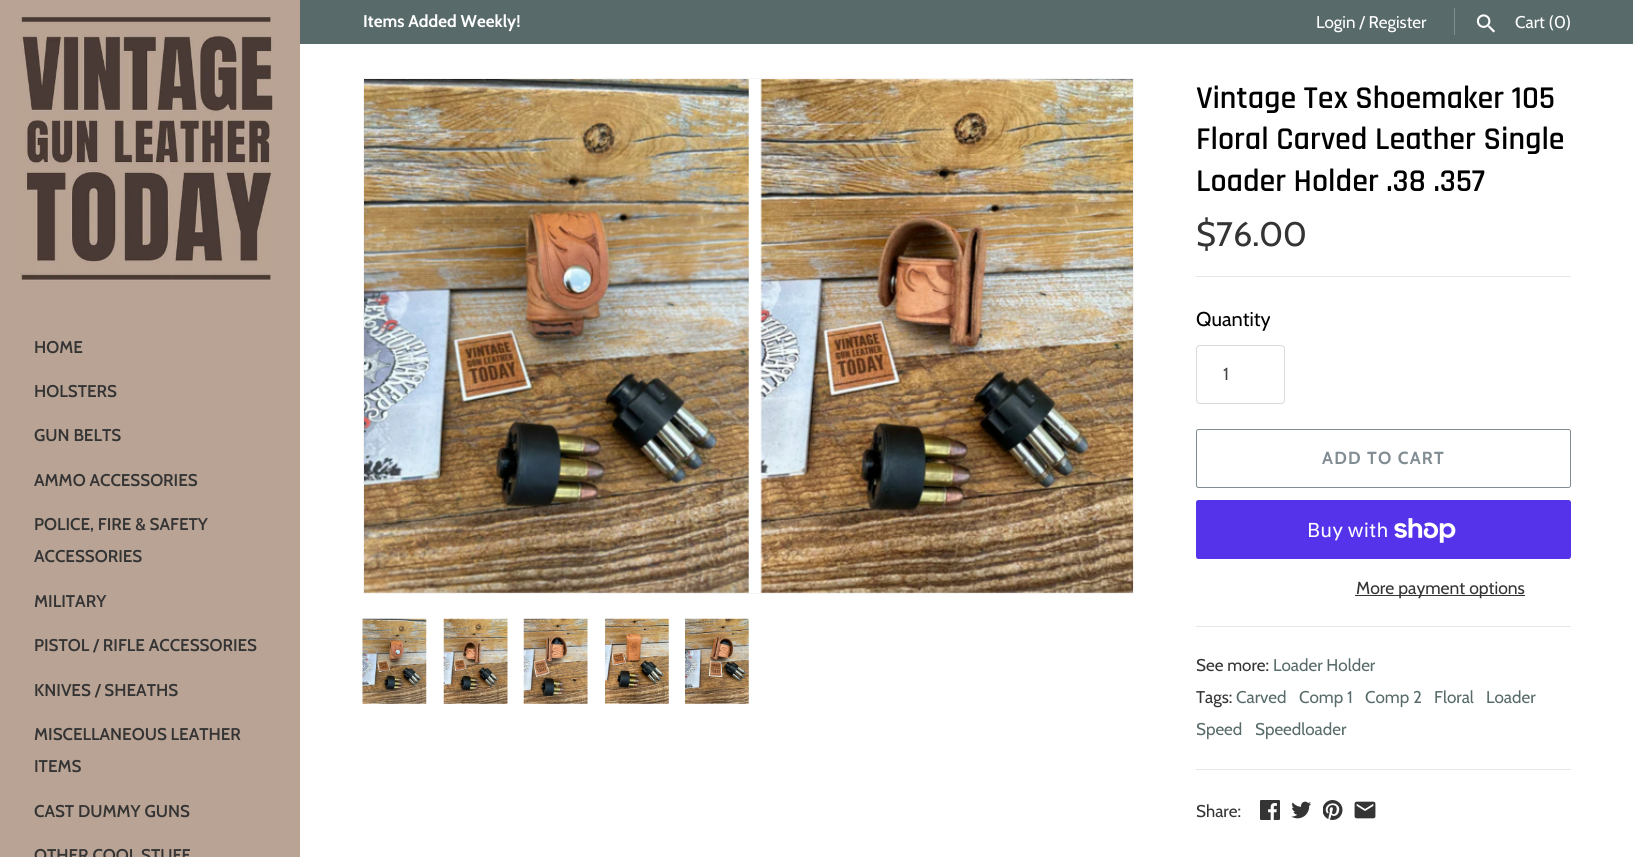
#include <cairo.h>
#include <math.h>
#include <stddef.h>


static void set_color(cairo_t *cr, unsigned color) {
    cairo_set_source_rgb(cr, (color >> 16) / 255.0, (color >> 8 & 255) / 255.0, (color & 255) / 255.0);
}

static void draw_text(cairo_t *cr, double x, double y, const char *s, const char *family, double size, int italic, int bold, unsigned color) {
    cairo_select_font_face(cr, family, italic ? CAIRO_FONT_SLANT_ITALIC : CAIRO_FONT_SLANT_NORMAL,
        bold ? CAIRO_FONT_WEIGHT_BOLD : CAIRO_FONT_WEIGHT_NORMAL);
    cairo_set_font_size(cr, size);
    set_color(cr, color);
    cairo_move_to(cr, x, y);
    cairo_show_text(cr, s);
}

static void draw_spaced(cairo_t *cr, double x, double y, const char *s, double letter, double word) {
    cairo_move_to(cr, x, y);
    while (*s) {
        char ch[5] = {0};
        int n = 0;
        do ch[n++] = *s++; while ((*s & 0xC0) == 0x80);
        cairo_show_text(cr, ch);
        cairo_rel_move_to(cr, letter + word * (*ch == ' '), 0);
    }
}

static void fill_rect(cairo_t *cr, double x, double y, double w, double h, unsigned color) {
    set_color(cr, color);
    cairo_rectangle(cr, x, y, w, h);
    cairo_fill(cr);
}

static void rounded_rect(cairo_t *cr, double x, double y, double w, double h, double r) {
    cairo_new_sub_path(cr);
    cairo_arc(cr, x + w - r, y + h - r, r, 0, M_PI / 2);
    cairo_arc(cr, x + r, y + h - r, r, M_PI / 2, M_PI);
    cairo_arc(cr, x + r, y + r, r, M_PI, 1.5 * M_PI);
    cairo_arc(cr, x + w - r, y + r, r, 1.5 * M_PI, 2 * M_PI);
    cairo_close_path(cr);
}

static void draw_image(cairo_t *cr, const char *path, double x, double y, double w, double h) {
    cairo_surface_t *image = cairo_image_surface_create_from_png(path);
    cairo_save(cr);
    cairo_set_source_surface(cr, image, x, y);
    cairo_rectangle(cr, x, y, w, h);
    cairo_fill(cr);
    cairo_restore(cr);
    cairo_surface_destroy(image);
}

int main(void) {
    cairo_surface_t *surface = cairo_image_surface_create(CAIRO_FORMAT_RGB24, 1633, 857);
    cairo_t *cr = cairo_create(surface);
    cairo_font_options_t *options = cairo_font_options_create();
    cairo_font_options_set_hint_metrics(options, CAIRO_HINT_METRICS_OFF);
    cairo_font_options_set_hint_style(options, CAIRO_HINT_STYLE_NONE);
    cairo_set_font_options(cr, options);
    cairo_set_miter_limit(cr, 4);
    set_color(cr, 0xFFFFFF);
    cairo_paint(cr);
    fill_rect(cr, 300, 0, 1333, 44, 0x586A6A);
    draw_text(cr, 363, 27, "Items Added Weekly!", "Cabin", 17, 0, 1, 0xFFFFFF);
    draw_text(cr, 1316, 28, "Login / Register", "Cabin", 17, 0, 0, 0xFFFFFF);
    fill_rect(cr, 1454, 8, 1, 27, 0x828F8F);
    draw_image(cr, "assets/img1.png", 1476, 14, 19, 19);
    draw_text(cr, 1515, 28, "Cart (0)", "Cabin", 17, 0, 0, 0xFFFFFF);
    fill_rect(cr, 0, 0, 300, 857, 0xB9A394);
    draw_image(cr, "assets/img2.png", 19, 15, 254, 266);
    draw_text(cr, 34, 353, "HOME", "Cabin SemiBold", 17, 0, 0, 0x343434);
    draw_text(cr, 34, 397, "HOLSTERS", "Cabin SemiBold", 17, 0, 0, 0x343434);
    draw_text(cr, 34, 441, "GUN BELTS", "Cabin SemiBold", 17, 0, 0, 0x343434);
    draw_text(cr, 34, 486, "AMMO ACCESSORIES", "Cabin SemiBold", 17, 0, 0, 0x343434);
    draw_text(cr, 34, 530, "POLICE, FIRE & SAFETY", "Cabin SemiBold", 17, 0, 0, 0x343434);
    draw_text(cr, 34, 562, "ACCESSORIES", "Cabin SemiBold", 17, 0, 0, 0x343434);
    draw_text(cr, 34, 607, "MILITARY", "Cabin SemiBold", 17, 0, 0, 0x343434);
    draw_text(cr, 34, 651, "PISTOL / RIFLE ACCESSORIES", "Cabin SemiBold", 17, 0, 0, 0x343434);
    draw_text(cr, 34, 696, "KNIVES / SHEATHS", "Cabin SemiBold", 17, 0, 0, 0x343434);
    draw_text(cr, 34, 740, "MISCELLANEOUS LEATHER", "Cabin SemiBold", 17, 0, 0, 0x343434);
    draw_text(cr, 34, 772, "ITEMS", "Cabin SemiBold", 17, 0, 0, 0x343434);
    draw_text(cr, 34, 817, "CAST DUMMY GUNS", "Cabin SemiBold", 17, 0, 0, 0x343434);
    draw_text(cr, 34, 861, "OTHER COOL STUFF", "Cabin SemiBold", 17, 0, 0, 0x343434);
    cairo_rectangle(cr, 363.5, 78.5, 770, 515);
    set_color(cr, 0xF5F5F5);
    cairo_set_line_width(cr, 1);
    cairo_stroke(cr);
    draw_image(cr, "assets/img3.png", 364, 79, 385, 514);
    draw_image(cr, "assets/img4.png", 760, 79, 373, 514);
    draw_image(cr, "assets/img5.png", 362, 618, 65, 86);
    draw_image(cr, "assets/img6.png", 443, 618, 65, 86);
    draw_image(cr, "assets/img7.png", 523, 618, 65, 86);
    draw_image(cr, "assets/img8.png", 605, 618, 64, 86);
    draw_image(cr, "assets/img9.png", 685, 618, 64, 86);
    draw_text(cr, 1196, 108, "Vintage Tex Shoemaker 105", "Rajdhani SemiBold", 32, 0, 0, 0x000000);
    draw_text(cr, 1196, 149, "Floral Carved Leather Single", "Rajdhani SemiBold", 32, 0, 0, 0x000000);
    draw_text(cr, 1196, 191, "Loader Holder .38 .357", "Rajdhani SemiBold", 32, 0, 0, 0x000000);
    draw_text(cr, 1196, 246, "$76.00", "Cabin", 34, 0, 0, 0x343434);
    fill_rect(cr, 1196, 276, 375, 1, 0xE7E7E7);
    draw_text(cr, 1196, 326, "Quantity", "Cabin", 20, 0, 0, 0x000000);
    rounded_rect(cr, 1196.5, 345.5, 88, 58, 3.5);
    set_color(cr, 0xD9D9D9);
    cairo_stroke(cr);
    draw_text(cr, 1223, 380, "1", "Cabin", 17.5, 0, 0, 0x444444);
    rounded_rect(cr, 1196.5, 429.5, 374, 58, 2);
    set_color(cr, 0x818D92);
    cairo_stroke(cr);
    cairo_select_font_face(cr, "Cabin", CAIRO_FONT_SLANT_NORMAL, CAIRO_FONT_WEIGHT_BOLD);
    draw_spaced(cr, 1322, 464, "ADD TO CART", 1.25, 0);
    set_color(cr, 0x5433EB);
    rounded_rect(cr, 1196, 500, 375, 59, 2.5);
    cairo_fill(cr);
    draw_text(cr, 1307, 537, "Buy with", "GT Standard", 20, 0, 0, 0xFFFFFF);
    draw_image(cr, "assets/img10.png", 1394, 518, 62, 25);
    fill_rect(cr, 1355, 595, 170, 1, 0x343434);
    draw_text(cr, 1356, 594, "More payment options", "Cabin", 17.5, 0, 0, 0x343434);
    fill_rect(cr, 1196, 626, 375, 1, 0xE7E7E7);
    draw_text(cr, 1196, 671, "See more:", "Cabin", 17, 0, 0, 0x343434);
    draw_text(cr, 1273, 671, "Loader Holder", "Cabin", 17, 0, 0, 0x586A6A);
    draw_text(cr, 1196, 703, "Tags:", "Cabin", 17, 0, 0, 0x343434);
    draw_text(cr, 1236, 703, "Carved", "Cabin", 17, 0, 0, 0x586A6A);
    draw_text(cr, 1299, 703, "Comp 1", "Cabin", 17, 0, 0, 0x586A6A);
    draw_text(cr, 1365, 703, "Comp 2", "Cabin", 17, 0, 0, 0x586A6A);
    draw_text(cr, 1434, 703, "Floral", "Cabin", 17, 0, 0, 0x586A6A);
    draw_text(cr, 1486, 703, "Loader", "Cabin", 17, 0, 0, 0x586A6A);
    draw_text(cr, 1196, 735, "Speed", "Cabin", 17, 0, 0, 0x586A6A);
    draw_text(cr, 1255, 735, "Speedloader", "Cabin", 17, 0, 0, 0x586A6A);
    fill_rect(cr, 1196, 769, 375, 1, 0xE7E7E7);
    draw_text(cr, 1196, 817, "Share:", "Cabin", 17, 0, 0, 0x343434);
    draw_image(cr, "assets/img11.png", 1260, 800, 20, 20);
    draw_image(cr, "assets/img12.png", 1291, 801, 20, 18);
    draw_image(cr, "assets/img13.png", 1323, 800, 20, 20);
    draw_image(cr, "assets/img14.png", 1354, 801, 22, 18);
    cairo_surface_write_to_png(surface, "output.png");
    cairo_font_options_destroy(options);
    cairo_destroy(cr);
    cairo_surface_destroy(surface);
    return 0;
}
